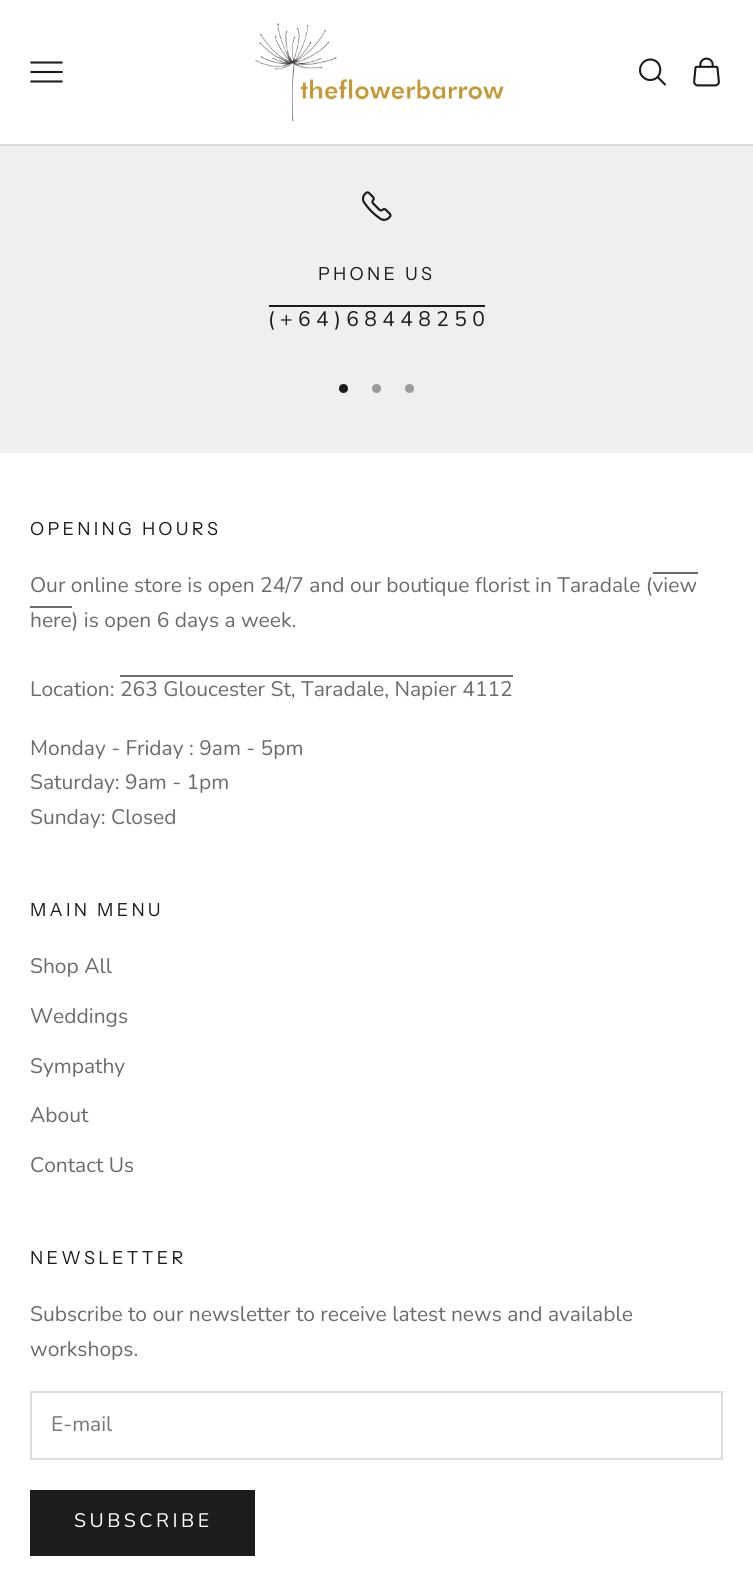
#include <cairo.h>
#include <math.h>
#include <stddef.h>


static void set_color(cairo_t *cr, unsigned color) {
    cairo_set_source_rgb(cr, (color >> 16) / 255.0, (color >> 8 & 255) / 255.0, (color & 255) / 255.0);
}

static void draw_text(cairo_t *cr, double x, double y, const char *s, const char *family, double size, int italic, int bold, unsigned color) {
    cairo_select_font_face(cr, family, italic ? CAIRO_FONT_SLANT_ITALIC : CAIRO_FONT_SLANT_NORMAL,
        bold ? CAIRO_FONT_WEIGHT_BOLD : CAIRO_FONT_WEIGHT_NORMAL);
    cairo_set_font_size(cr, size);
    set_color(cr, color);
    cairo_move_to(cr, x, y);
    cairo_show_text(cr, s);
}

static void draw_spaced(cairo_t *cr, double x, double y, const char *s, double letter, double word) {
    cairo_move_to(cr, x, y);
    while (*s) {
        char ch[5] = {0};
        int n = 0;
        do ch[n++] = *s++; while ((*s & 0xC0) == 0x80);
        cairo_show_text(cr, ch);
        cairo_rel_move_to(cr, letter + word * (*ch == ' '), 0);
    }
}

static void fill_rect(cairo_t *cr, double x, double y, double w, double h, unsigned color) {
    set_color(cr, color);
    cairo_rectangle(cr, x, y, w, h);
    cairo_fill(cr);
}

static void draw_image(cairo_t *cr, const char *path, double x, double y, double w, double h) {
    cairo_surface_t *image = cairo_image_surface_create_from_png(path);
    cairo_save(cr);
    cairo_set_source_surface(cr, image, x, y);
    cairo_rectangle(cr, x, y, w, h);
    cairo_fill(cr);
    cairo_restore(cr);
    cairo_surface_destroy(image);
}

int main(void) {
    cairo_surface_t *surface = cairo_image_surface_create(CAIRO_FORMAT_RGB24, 753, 1593);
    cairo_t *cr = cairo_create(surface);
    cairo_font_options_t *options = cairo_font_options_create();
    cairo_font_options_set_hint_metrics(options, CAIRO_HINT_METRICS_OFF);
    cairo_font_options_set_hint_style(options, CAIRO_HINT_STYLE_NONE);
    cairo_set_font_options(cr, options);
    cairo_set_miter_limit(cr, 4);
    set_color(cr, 0xEFEFEF);
    cairo_paint(cr);
    fill_rect(cr, 0, 0, 753, 144, 0xFFFFFF);
    fill_rect(cr, 0, 144, 753, 2, 0xDDDDDD);
    cairo_new_path(cr);
    cairo_move_to(cr, 31.5, 81.5);
    cairo_line_to(cr, 61.5, 81.5);
    cairo_move_to(cr, 31.5, 72);
    cairo_line_to(cr, 61.5, 72);
    cairo_move_to(cr, 31.5, 62.5);
    cairo_line_to(cr, 61.5, 62.5);
    set_color(cr, 0x1C1C1C);
    cairo_set_line_width(cr, 2.1);
    cairo_set_line_cap(cr, CAIRO_LINE_CAP_SQUARE);
    cairo_stroke(cr);
    draw_image(cr, "assets/img1.png", 255, 23, 249, 98);
    cairo_new_path(cr);
    cairo_move_to(cr, 650.5, 59.5);
    cairo_curve_to(cr, 640, 59.5, 636, 73.5, 645, 78.5);
    cairo_curve_to(cr, 646.5, 79.5, 648.5, 80, 650.5, 80);
    cairo_curve_to(cr, 663.5, 79.5, 663.5, 60, 650.5, 59.5);
    cairo_close_path(cr);
    cairo_set_line_cap(cr, CAIRO_LINE_CAP_BUTT);
    cairo_stroke(cr);
    cairo_new_path(cr);
    cairo_move_to(cr, 658, 77.5);
    cairo_line_to(cr, 665, 84.5);
    cairo_set_line_cap(cr, CAIRO_LINE_CAP_ROUND);
    cairo_stroke(cr);
    draw_image(cr, "assets/img2.png", 693, 57, 27, 30);
    draw_image(cr, "assets/img3.png", 361, 191, 31, 30);
    cairo_select_font_face(cr, "Instrument Sans", CAIRO_FONT_SLANT_NORMAL, CAIRO_FONT_WEIGHT_NORMAL);
    cairo_set_font_size(cr, 18);
    draw_spaced(cr, 318, 280, "PHONE US", 3.25, 0);
    draw_text(cr, 268, 326, "( + 6 4 ) 6 8 4 4 8 2 5 0", "Nunito", 21, 0, 0, 0x1C1C1C);
    fill_rect(cr, 269, 305, 216, 2, 0x1C1C1C);
    cairo_new_path(cr);
    cairo_arc(cr, 343.5, 388.5, 4.5, 0, 2 * M_PI);
    cairo_fill(cr);
    set_color(cr, 0x9B9B9B);
    cairo_arc(cr, 376.5, 388.5, 4.5, 0, 2 * M_PI);
    cairo_fill(cr);
    cairo_arc(cr, 409.5, 388.5, 4.5, 0, 2 * M_PI);
    cairo_fill(cr);
    fill_rect(cr, 0, 453, 753, 1140, 0xFFFFFF);
    cairo_select_font_face(cr, "Instrument Sans", CAIRO_FONT_SLANT_NORMAL, CAIRO_FONT_WEIGHT_NORMAL);
    cairo_set_font_size(cr, 18);
    set_color(cr, 0x1C1C1C);
    draw_spaced(cr, 30, 535, "OPENING HOURS", 3.25, 0);
    draw_text(cr, 30, 592, "Our online store is open 24/7 and our boutique florist in Taradale (view", "Nunito", 21, 0, 0, 0x6B6B6B);
    draw_text(cr, 30, 627, "here) is open 6 days a week.", "Nunito", 21, 0, 0, 0x6B6B6B);
    fill_rect(cr, 653, 572, 45, 2, 0x6B6B6B);
    fill_rect(cr, 30, 606, 42, 2, 0x6B6B6B);
    fill_rect(cr, 120, 675, 393, 2, 0x6B6B6B);
    draw_text(cr, 30, 696, "Location: 263 Gloucester St, Taradale, Napier 4112", "Nunito", 21, 0, 0, 0x6B6B6B);
    draw_text(cr, 30, 755, "Monday - Friday : 9am - 5pm", "Nunito", 21, 0, 0, 0x6B6B6B);
    draw_text(cr, 30, 789, "Saturday: 9am - 1pm", "Nunito", 21, 0, 0, 0x6B6B6B);
    draw_text(cr, 30, 824, "Sunday: Closed", "Nunito", 21, 0, 0, 0x6B6B6B);
    cairo_select_font_face(cr, "Instrument Sans", CAIRO_FONT_SLANT_NORMAL, CAIRO_FONT_WEIGHT_NORMAL);
    cairo_set_font_size(cr, 18);
    set_color(cr, 0x1C1C1C);
    draw_spaced(cr, 30, 916, "MAIN MENU", 3.25, 0);
    draw_text(cr, 30, 973, "Shop All", "Nunito", 21, 0, 0, 0x6B6B6B);
    draw_text(cr, 30, 1023, "Weddings", "Nunito", 21, 0, 0, 0x6B6B6B);
    draw_text(cr, 30, 1073, "Sympathy", "Nunito", 21, 0, 0, 0x6B6B6B);
    draw_text(cr, 30, 1122, "About", "Nunito", 21, 0, 0, 0x6B6B6B);
    draw_text(cr, 30, 1172, "Contact Us", "Nunito", 21, 0, 0, 0x6B6B6B);
    cairo_select_font_face(cr, "Instrument Sans", CAIRO_FONT_SLANT_NORMAL, CAIRO_FONT_WEIGHT_NORMAL);
    cairo_set_font_size(cr, 18);
    set_color(cr, 0x1C1C1C);
    draw_spaced(cr, 30, 1264, "NEWSLETTER", 3.25, 0);
    draw_text(cr, 30, 1321, "Subscribe to our newsletter to receive latest news and available", "Nunito", 21, 0, 0, 0x6B6B6B);
    draw_text(cr, 30, 1356, "workshops.", "Nunito", 21, 0, 0, 0x6B6B6B);
    cairo_rectangle(cr, 31, 1392, 691, 67);
    set_color(cr, 0xDDDDDD);
    cairo_set_line_width(cr, 2);
    cairo_set_line_cap(cr, CAIRO_LINE_CAP_BUTT);
    cairo_stroke(cr);
    draw_text(cr, 51, 1431, "E-mail", "Nunito", 21, 0, 0, 0x777777);
    set_color(cr, 0x1C1C1C);
    cairo_rectangle(cr, 31, 1491, 223, 64);
    cairo_fill_preserve(cr);
    cairo_stroke(cr);
    cairo_set_font_size(cr, 19.5);
    set_color(cr, 0xFFFFFF);
    draw_spaced(cr, 74, 1527, "SUBSCRIBE", 3.5, 0);
    cairo_surface_write_to_png(surface, "output.png");
    cairo_font_options_destroy(options);
    cairo_destroy(cr);
    cairo_surface_destroy(surface);
    return 0;
}
